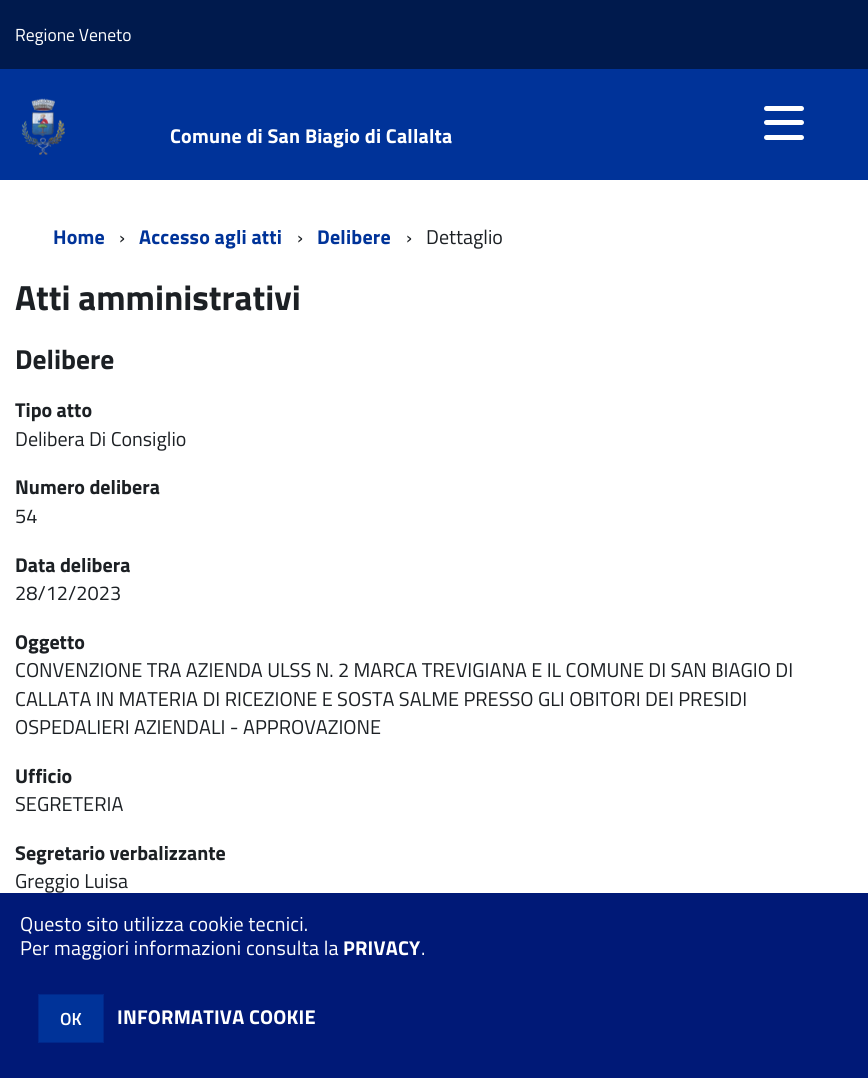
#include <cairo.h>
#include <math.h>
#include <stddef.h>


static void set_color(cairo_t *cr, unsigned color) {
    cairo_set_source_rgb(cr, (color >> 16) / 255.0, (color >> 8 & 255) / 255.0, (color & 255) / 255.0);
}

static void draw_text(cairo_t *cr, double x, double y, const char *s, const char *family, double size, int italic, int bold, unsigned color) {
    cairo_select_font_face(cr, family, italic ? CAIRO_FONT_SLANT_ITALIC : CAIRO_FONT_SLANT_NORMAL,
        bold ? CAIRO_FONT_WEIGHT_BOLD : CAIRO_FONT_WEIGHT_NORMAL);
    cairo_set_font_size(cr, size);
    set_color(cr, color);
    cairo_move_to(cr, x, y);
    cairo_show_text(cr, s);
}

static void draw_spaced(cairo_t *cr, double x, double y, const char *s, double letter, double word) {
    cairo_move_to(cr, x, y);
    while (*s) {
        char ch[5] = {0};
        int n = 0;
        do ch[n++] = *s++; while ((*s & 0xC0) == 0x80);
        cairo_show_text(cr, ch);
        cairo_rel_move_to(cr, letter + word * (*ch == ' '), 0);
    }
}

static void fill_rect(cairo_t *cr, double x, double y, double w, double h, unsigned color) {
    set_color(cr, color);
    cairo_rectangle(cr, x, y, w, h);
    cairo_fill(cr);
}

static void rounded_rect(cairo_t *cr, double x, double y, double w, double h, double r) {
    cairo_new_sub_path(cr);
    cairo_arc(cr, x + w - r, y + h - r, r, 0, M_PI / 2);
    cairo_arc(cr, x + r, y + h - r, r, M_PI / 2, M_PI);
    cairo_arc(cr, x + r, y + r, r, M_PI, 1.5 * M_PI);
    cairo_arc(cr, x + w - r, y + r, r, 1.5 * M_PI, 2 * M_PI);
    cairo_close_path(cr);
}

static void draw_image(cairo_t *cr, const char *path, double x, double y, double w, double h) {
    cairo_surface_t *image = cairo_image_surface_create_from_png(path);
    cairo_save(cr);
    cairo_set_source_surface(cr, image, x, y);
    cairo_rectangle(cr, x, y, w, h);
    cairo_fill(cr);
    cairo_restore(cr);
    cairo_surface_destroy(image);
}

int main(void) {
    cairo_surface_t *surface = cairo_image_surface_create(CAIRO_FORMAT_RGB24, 868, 1078);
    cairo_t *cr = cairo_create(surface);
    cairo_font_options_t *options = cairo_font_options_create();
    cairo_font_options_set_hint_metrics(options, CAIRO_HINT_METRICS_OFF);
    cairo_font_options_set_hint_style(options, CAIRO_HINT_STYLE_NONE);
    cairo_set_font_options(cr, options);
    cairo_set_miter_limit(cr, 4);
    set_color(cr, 0xFFFFFF);
    cairo_paint(cr);
    fill_rect(cr, 0, 0, 868, 69, 0x001A4D);
    draw_text(cr, 15, 41, "Regione Veneto", "Titillium Web", 17.5, 0, 0, 0xFFFFFF);
    fill_rect(cr, 0, 69, 868, 111, 0x003399);
    draw_image(cr, "assets/img1.png", 21, 98, 44, 57);
    cairo_select_font_face(cr, "Titillium Web", CAIRO_FONT_SLANT_NORMAL, CAIRO_FONT_WEIGHT_BOLD);
    cairo_set_font_size(cr, 20);
    set_color(cr, 0xFFFFFF);
    draw_spaced(cr, 170, 143, "Comune di San Biagio di Callalta", 0.2, 0);
    rounded_rect(cr, 764, 120, 40, 5, 2.5);
    cairo_fill(cr);
    rounded_rect(cr, 764, 106, 40, 5, 2.5);
    cairo_fill(cr);
    rounded_rect(cr, 764, 135, 40, 5, 2.5);
    cairo_fill(cr);
    set_color(cr, 0x003399);
    draw_spaced(cr, 53, 244, "Home", 0.2, 0);
    draw_text(cr, 119, 244, "›", "Titillium Web", 20, 0, 0, 0x1C2024);
    cairo_select_font_face(cr, "Titillium Web", CAIRO_FONT_SLANT_NORMAL, CAIRO_FONT_WEIGHT_BOLD);
    set_color(cr, 0x003399);
    draw_spaced(cr, 139, 244, "Accesso agli atti", 0.2, 0);
    draw_text(cr, 297, 244, "›", "Titillium Web", 20, 0, 0, 0x1C2024);
    cairo_select_font_face(cr, "Titillium Web", CAIRO_FONT_SLANT_NORMAL, CAIRO_FONT_WEIGHT_BOLD);
    set_color(cr, 0x003399);
    draw_spaced(cr, 317, 244, "Delibere", 0.2, 0);
    draw_text(cr, 406, 244, "›", "Titillium Web", 20, 0, 0, 0x1C2024);
    draw_text(cr, 426, 244, "Dettaglio", "Titillium Web", 20, 0, 0, 0x1C2024);
    draw_text(cr, 15, 310, "Atti amministrativi", "Titillium Web", 35, 0, 1, 0x1C2024);
    draw_text(cr, 15, 369, "Delibere", "Titillium Web", 27.5, 0, 1, 0x1C2024);
    draw_text(cr, 15, 417, "Tipo atto", "Titillium Web", 20, 0, 1, 0x1C2024);
    draw_text(cr, 15, 446, "Delibera Di Consiglio", "Titillium Web", 20, 0, 0, 0x1C2024);
    draw_text(cr, 15, 494, "Numero delibera", "Titillium Web", 20, 0, 1, 0x1C2024);
    draw_text(cr, 15, 523, "54", "Titillium Web", 20, 0, 0, 0x1C2024);
    draw_text(cr, 15, 572, "Data delibera", "Titillium Web", 20, 0, 1, 0x1C2024);
    draw_text(cr, 15, 600, "28/12/2023", "Titillium Web", 20, 0, 0, 0x1C2024);
    draw_text(cr, 15, 649, "Oggetto", "Titillium Web", 20, 0, 1, 0x1C2024);
    draw_text(cr, 15, 677, "CONVENZIONE TRA AZIENDA ULSS N. 2 MARCA TREVIGIANA E IL COMUNE DI SAN BIAGIO DI", "Titillium Web", 20, 0, 0, 0x1C2024);
    draw_text(cr, 15, 706, "CALLATA IN MATERIA DI RICEZIONE E SOSTA SALME PRESSO GLI OBITORI DEI PRESIDI", "Titillium Web", 20, 0, 0, 0x1C2024);
    draw_text(cr, 15, 734, "OSPEDALIERI AZIENDALI - APPROVAZIONE", "Titillium Web", 20, 0, 0, 0x1C2024);
    draw_text(cr, 15, 783, "Ufficio", "Titillium Web", 20, 0, 1, 0x1C2024);
    draw_text(cr, 15, 811, "SEGRETERIA", "Titillium Web", 20, 0, 0, 0x1C2024);
    draw_text(cr, 15, 860, "Segretario verbalizzante", "Titillium Web", 20, 0, 1, 0x1C2024);
    draw_text(cr, 15, 888, "Greggio Luisa", "Titillium Web", 20, 0, 0, 0x1C2024);
    fill_rect(cr, 0, 893, 868, 185, 0x001977);
    set_color(cr, 0xFFFFFF);
    draw_spaced(cr, 20, 931, "Questo sito utilizza cookie tecnici.", 0.2, 0);
    draw_spaced(cr, 20, 955, "Per maggiori informazioni consulta la", 0.2, 0);
    cairo_select_font_face(cr, "Titillium Web", CAIRO_FONT_SLANT_NORMAL, CAIRO_FONT_WEIGHT_BOLD);
    draw_spaced(cr, 343, 955, "PRIVACY", 0.2, 0);
    cairo_select_font_face(cr, "Titillium Web", CAIRO_FONT_SLANT_NORMAL, CAIRO_FONT_WEIGHT_NORMAL);
    draw_spaced(cr, 421, 955, ".", 0.2, 0);
    set_color(cr, 0x003399);
    cairo_rectangle(cr, 38.5, 994.5, 65, 48);
    cairo_fill_preserve(cr);
    set_color(cr, 0x00288B);
    cairo_set_line_width(cr, 1);
    cairo_stroke(cr);
    draw_text(cr, 60, 1025, "OK", "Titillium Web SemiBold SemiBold", 17.5, 0, 0, 0xFFFFFF);
    cairo_select_font_face(cr, "Titillium Web", CAIRO_FONT_SLANT_NORMAL, CAIRO_FONT_WEIGHT_BOLD);
    cairo_set_font_size(cr, 20);
    draw_spaced(cr, 117, 1024, "INFORMATIVA COOKIE", 0.2, 0);
    cairo_surface_write_to_png(surface, "output.png");
    cairo_font_options_destroy(options);
    cairo_destroy(cr);
    cairo_surface_destroy(surface);
    return 0;
}
